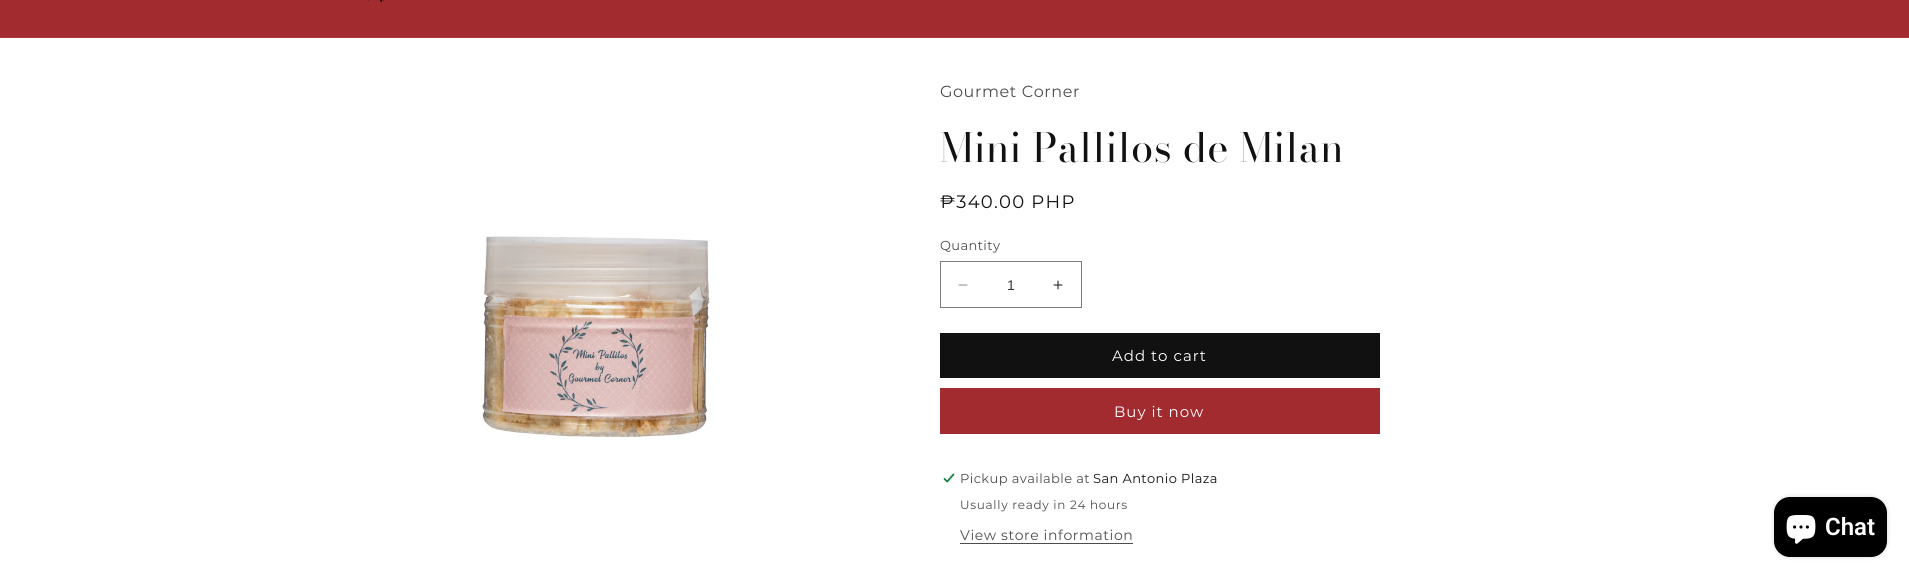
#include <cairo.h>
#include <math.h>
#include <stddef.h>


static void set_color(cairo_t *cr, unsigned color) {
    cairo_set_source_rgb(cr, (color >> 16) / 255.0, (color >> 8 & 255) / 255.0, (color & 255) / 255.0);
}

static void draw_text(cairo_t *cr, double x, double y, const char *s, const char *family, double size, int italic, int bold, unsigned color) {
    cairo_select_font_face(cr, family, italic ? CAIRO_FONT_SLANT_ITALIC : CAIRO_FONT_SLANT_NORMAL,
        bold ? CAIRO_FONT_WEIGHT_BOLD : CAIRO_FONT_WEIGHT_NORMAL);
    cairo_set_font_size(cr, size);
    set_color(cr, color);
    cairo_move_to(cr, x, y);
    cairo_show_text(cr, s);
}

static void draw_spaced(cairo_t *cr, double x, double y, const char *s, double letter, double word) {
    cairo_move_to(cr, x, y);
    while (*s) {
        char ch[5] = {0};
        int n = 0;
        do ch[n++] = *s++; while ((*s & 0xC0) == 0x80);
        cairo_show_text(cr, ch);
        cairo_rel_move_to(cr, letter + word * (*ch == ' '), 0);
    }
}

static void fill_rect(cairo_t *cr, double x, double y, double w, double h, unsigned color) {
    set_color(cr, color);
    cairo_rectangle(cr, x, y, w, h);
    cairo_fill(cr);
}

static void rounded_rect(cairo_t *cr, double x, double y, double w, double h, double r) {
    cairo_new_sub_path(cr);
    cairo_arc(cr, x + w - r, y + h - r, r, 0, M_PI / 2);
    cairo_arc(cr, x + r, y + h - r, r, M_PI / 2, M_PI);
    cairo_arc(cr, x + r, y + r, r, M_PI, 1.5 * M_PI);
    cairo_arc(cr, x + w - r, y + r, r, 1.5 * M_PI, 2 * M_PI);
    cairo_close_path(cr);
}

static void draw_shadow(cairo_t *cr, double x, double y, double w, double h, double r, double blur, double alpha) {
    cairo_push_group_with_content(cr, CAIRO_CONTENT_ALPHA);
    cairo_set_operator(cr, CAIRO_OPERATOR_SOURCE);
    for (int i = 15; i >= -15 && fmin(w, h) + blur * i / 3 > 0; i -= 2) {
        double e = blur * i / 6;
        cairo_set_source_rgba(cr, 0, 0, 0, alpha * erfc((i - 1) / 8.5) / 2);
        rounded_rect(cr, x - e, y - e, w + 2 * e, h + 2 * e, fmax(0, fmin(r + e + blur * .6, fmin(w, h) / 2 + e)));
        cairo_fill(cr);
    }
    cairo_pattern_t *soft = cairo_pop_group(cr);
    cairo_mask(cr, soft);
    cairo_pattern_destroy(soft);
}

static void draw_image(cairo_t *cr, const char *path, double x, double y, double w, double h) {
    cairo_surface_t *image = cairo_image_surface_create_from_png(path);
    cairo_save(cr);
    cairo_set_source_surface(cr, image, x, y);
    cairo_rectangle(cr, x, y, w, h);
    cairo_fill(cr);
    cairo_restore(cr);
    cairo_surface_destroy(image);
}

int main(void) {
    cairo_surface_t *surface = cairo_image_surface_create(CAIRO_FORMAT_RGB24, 1909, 578);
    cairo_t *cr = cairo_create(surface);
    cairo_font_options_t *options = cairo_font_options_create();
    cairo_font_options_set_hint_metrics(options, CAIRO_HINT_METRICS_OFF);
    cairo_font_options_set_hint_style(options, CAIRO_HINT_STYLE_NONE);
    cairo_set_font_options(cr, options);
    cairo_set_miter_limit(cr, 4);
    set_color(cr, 0xFFFFFF);
    cairo_paint(cr);
    fill_rect(cr, 0, 0, 1909, 37, 0xA22B2F);
    fill_rect(cr, 0, 37, 1909, 1, 0xA93C40);
    draw_image(cr, "assets/img1.png", 368, 0, 16, 2);
    draw_image(cr, "assets/img2.png", 482, 236, 228, 201);
    cairo_select_font_face(cr, "Montserrat", CAIRO_FONT_SLANT_NORMAL, CAIRO_FONT_WEIGHT_NORMAL);
    cairo_set_font_size(cr, 16);
    set_color(cr, 0x4D4D4D);
    draw_spaced(cr, 940, 97, "Gourmet Corner", 0.6, 0);
    cairo_select_font_face(cr, "Bodoni Moda", CAIRO_FONT_SLANT_NORMAL, CAIRO_FONT_WEIGHT_NORMAL);
    cairo_set_font_size(cr, 40);
    set_color(cr, 0x111111);
    draw_spaced(cr, 940, 162, "Mini Pallilos de Milan", 0.6, 0);
    cairo_select_font_face(cr, "Montserrat", CAIRO_FONT_SLANT_NORMAL, CAIRO_FONT_WEIGHT_NORMAL);
    cairo_set_font_size(cr, 18);
    draw_spaced(cr, 940, 208, "₱340.00 PHP", 1.25, 0);
    cairo_set_font_size(cr, 13);
    set_color(cr, 0x4D4D4D);
    draw_spaced(cr, 940, 250, "Quantity", 0.4, 0);
    draw_image(cr, "assets/img3.png", 958, 284, 10, 2);
    draw_image(cr, "assets/img4.png", 1053, 280, 10, 10);
    cairo_rectangle(cr, 940.5, 261.5, 141, 46);
    set_color(cr, 0x7C7C7C);
    cairo_set_line_width(cr, 1);
    cairo_stroke(cr);
    draw_text(cr, 1007, 290, "1", "Liberation Sans", 14, 0, 0, 0x353535);
    fill_rect(cr, 940, 333, 440, 45, 0x111111);
    cairo_select_font_face(cr, "Montserrat", CAIRO_FONT_SLANT_NORMAL, CAIRO_FONT_WEIGHT_NORMAL);
    cairo_set_font_size(cr, 15);
    set_color(cr, 0xFFFFFF);
    draw_spaced(cr, 1112, 361, "Add to cart", 1, 0);
    fill_rect(cr, 940, 388, 440, 46, 0xA22B2F);
    set_color(cr, 0xFFFFFF);
    draw_spaced(cr, 1114, 417, "Buy it now", 1, 0);
    draw_image(cr, "assets/img5.png", 943, 473, 12, 10);
    cairo_set_font_size(cr, 13);
    set_color(cr, 0x4D4D4D);
    draw_spaced(cr, 960, 483, "Pickup available at", 0.4, 0);
    set_color(cr, 0x111111);
    draw_spaced(cr, 1093, 483, "San Antonio Plaza", 0.4, 0);
    cairo_set_font_size(cr, 12);
    set_color(cr, 0x4D4D4D);
    draw_spaced(cr, 960, 509, "Usually ready in 24 hours", 0.7, 0);
    cairo_set_font_size(cr, 14);
    draw_spaced(cr, 960, 540, "View store information", 0.6, 0);
    fill_rect(cr, 960, 543, 173, 1, 0x4D4D4D);
    set_color(cr, 0x000000);
    draw_shadow(cr, 1774, 497, 113, 60, 16, 2.5, 0.15);
    set_color(cr, 0x000000);
    rounded_rect(cr, 1774, 497, 113, 60, 16);
    cairo_fill(cr);
    draw_image(cr, "assets/img6.png", 1786, 515, 30, 29);
    draw_text(cr, 1825, 535, "Chat", "Roboto SemiBold", 24, 0, 0, 0xFFFFFF);
    cairo_surface_write_to_png(surface, "output.png");
    cairo_font_options_destroy(options);
    cairo_destroy(cr);
    cairo_surface_destroy(surface);
    return 0;
}
